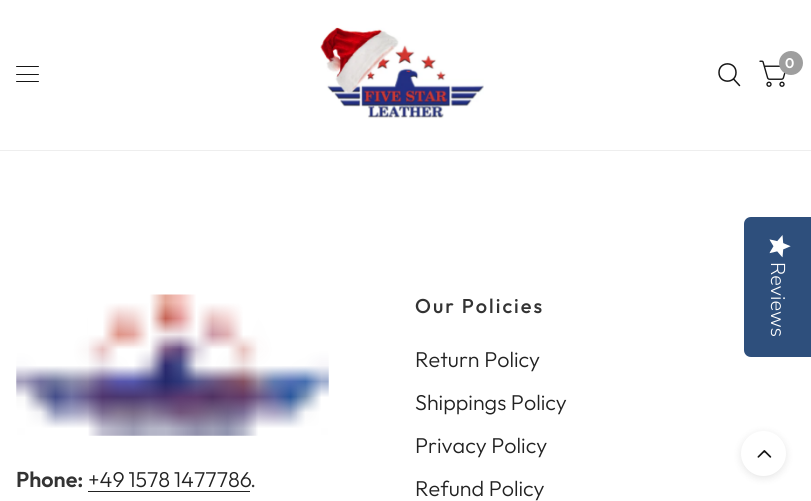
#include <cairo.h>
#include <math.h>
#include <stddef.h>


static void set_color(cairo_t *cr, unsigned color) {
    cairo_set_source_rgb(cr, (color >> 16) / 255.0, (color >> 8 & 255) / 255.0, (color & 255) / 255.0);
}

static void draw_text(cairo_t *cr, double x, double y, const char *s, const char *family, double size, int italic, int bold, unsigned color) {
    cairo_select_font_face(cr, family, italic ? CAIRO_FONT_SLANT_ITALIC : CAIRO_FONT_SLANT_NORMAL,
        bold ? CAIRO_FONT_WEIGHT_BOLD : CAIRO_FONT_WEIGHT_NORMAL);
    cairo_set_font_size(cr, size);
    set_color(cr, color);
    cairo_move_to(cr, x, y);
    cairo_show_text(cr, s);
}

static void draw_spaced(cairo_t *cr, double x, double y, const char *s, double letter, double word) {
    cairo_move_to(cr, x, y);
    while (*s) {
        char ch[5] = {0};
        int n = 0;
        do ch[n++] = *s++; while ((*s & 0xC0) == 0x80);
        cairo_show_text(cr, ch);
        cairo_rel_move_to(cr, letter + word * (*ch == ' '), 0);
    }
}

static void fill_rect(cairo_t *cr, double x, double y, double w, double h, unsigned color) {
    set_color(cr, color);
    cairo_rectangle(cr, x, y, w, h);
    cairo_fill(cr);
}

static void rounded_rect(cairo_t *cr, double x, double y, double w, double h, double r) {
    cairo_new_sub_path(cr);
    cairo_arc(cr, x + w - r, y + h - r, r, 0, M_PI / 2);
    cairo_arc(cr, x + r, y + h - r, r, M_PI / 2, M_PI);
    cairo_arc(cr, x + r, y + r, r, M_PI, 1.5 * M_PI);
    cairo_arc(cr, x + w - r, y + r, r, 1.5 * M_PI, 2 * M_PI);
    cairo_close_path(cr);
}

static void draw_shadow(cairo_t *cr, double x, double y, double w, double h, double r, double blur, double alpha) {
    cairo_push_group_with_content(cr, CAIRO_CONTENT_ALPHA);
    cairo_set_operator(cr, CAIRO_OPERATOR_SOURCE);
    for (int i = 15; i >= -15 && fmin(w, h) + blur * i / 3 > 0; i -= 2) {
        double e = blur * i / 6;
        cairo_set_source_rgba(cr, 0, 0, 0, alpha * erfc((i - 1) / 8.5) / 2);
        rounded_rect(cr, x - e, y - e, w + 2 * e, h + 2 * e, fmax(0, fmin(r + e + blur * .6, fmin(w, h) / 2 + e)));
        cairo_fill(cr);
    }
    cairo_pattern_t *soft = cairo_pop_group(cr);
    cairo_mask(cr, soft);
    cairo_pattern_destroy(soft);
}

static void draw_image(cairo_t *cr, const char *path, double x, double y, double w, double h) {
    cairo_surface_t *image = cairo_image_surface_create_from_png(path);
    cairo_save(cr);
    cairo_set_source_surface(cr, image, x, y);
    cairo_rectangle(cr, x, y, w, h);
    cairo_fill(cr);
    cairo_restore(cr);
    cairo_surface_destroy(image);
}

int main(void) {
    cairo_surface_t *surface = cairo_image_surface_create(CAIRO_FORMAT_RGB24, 811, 501);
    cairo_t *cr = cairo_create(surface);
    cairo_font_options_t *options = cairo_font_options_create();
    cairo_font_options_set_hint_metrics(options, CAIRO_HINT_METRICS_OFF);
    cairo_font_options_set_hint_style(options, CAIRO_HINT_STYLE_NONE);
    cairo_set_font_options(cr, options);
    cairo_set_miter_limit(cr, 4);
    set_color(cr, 0xFFFFFF);
    cairo_paint(cr);
    fill_rect(cr, 0, 150, 811, 1, 0xEEEEEE);
    draw_image(cr, "assets/img1.png", 320, 27, 164, 92);
    cairo_new_path(cr);
    cairo_move_to(cr, 734, 79.5);
    cairo_line_to(cr, 739.5, 85.5);
    cairo_move_to(cr, 736, 72.5);
    cairo_curve_to(cr, 736, 84, 719, 84, 719, 72.5);
    cairo_curve_to(cr, 719, 61, 736, 61, 736, 72.5);
    cairo_close_path(cr);
    set_color(cr, 0x151515);
    cairo_set_line_width(cr, 1.5);
    cairo_set_line_cap(cr, CAIRO_LINE_CAP_ROUND);
    cairo_set_line_join(cr, CAIRO_LINE_JOIN_ROUND);
    cairo_stroke(cr);
    draw_image(cr, "assets/img2.png", 759, 60, 27, 27);
    set_color(cr, 0x9E9E9E);
    cairo_arc(cr, 791, 63, 12, 0, 2 * M_PI);
    cairo_fill(cr);
    draw_text(cr, 785, 68, "0", "Outfit SemiBold", 14, 0, 0, 0xFFFFFF);
    set_color(cr, 0x151515);
    rounded_rect(cr, 16, 66, 23, 1, 0.5);
    cairo_fill(cr);
    rounded_rect(cr, 16, 74, 23, 1, 0.5);
    cairo_fill(cr);
    rounded_rect(cr, 16, 81, 23, 1, 0.5);
    cairo_fill(cr);
    draw_image(cr, "assets/img3.png", 16, 294, 313, 142);
    draw_text(cr, 16, 487, "Phone:", "Outfit SemiBold", 21.5, 0, 0, 0x333333);
    cairo_select_font_face(cr, "Outfit Light", CAIRO_FONT_SLANT_NORMAL, CAIRO_FONT_WEIGHT_NORMAL);
    set_color(cr, 0x222222);
    draw_spaced(cr, 88, 487, "+49 1578 1477786", 0, -1);
    fill_rect(cr, 88, 491, 162, 1, 0x222222);
    draw_text(cr, 250, 487, ".", "Outfit Light", 21.5, 0, 0, 0x333333);
    cairo_select_font_face(cr, "Outfit Medium", CAIRO_FONT_SLANT_NORMAL, CAIRO_FONT_WEIGHT_NORMAL);
    cairo_set_font_size(cr, 20);
    draw_spaced(cr, 415, 313, "Our Policies", 2, 0);
    draw_text(cr, 415, 367, "Return Policy", "Outfit Light", 21.5, 0, 0, 0x222222);
    draw_text(cr, 415, 410, "Shippings Policy", "Outfit Light", 21.5, 0, 0, 0x222222);
    draw_text(cr, 415, 453, "Privacy Policy", "Outfit Light", 21.5, 0, 0, 0x222222);
    draw_text(cr, 415, 496, "Refund Policy", "Outfit Light", 21.5, 0, 0, 0x222222);
    set_color(cr, 0x2E4F7C);
    cairo_new_path(cr);
    cairo_move_to(cr, 811, 217);
    cairo_line_to(cr, 811, 357);
    cairo_line_to(cr, 751, 357);
    cairo_curve_to(cr, 747, 357, 744, 354, 744, 350);
    cairo_line_to(cr, 744, 224);
    cairo_curve_to(cr, 744, 220, 747, 217, 751, 217);
    cairo_close_path(cr);
    cairo_fill(cr);
    draw_image(cr, "assets/img4.png", 769, 235, 22, 23);
    cairo_save(cr);
    cairo_translate(cr, 771, 262);
    cairo_rotate(cr, 90 * M_PI / 180);
    draw_text(cr, 0, 0, "Reviews", "Nunito Sans Light", 20, 0, 0, 0xFFFFFF);
    cairo_restore(cr);
    set_color(cr, 0x000000);
    draw_shadow(cr, 741, 433, 45, 45, 22.5, 4, 0.1);
    set_color(cr, 0xFFFFFF);
    cairo_arc(cr, 763.5, 453.5, 22.5, 0, 2 * M_PI);
    cairo_fill(cr);
    draw_image(cr, "assets/img5.png", 757, 450, 15, 8);
    cairo_surface_write_to_png(surface, "output.png");
    cairo_font_options_destroy(options);
    cairo_destroy(cr);
    cairo_surface_destroy(surface);
    return 0;
}
